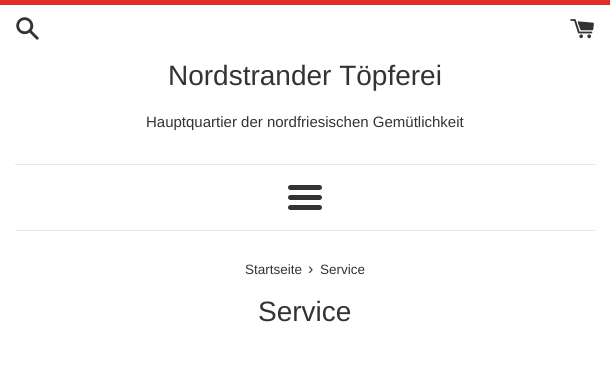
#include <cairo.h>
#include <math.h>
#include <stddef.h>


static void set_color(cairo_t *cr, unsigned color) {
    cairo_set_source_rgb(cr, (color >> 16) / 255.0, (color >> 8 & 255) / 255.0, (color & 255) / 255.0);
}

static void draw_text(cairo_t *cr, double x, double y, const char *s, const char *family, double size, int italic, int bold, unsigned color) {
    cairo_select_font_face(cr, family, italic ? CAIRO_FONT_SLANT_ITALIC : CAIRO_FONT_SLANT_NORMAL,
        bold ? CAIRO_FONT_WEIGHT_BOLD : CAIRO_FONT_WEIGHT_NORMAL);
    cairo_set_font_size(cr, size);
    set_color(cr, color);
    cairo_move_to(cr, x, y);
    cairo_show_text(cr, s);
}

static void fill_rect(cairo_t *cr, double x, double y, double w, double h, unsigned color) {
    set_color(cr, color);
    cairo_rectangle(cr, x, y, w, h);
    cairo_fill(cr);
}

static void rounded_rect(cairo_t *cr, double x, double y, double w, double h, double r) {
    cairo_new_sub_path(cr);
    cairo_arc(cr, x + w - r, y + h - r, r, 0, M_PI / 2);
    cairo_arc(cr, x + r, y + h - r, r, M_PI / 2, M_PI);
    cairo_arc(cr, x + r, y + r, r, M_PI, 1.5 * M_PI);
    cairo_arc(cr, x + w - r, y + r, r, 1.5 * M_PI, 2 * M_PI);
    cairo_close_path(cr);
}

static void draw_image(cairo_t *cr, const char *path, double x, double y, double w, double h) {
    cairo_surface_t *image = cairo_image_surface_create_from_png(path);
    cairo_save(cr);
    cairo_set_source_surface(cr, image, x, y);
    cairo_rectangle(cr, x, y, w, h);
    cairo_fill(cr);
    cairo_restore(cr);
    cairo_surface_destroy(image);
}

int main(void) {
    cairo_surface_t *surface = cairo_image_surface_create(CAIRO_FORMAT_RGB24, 610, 378);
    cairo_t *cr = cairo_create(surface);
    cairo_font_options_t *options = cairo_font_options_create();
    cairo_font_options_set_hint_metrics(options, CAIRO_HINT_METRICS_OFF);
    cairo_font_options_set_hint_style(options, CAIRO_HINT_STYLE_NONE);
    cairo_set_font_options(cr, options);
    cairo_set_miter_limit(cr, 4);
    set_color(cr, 0xFFFFFF);
    cairo_paint(cr);
    fill_rect(cr, 0, 0, 610, 5, 0xE32C2B);
    draw_image(cr, "assets/img1.png", 16, 17, 23, 23);
    draw_image(cr, "assets/img2.png", 570, 19, 24, 20);
    draw_text(cr, 168, 85, "Nordstrander Töpferei", "Liberation Sans", 28, 0, 0, 0x333333);
    draw_text(cr, 146, 127, "Hauptquartier der nordfriesischen Gemütlichkeit", "Liberation Sans", 15, 0, 0, 0x333333);
    fill_rect(cr, 15, 164, 580, 1, 0xE8E8E8);
    set_color(cr, 0x333333);
    rounded_rect(cr, 288, 185, 34, 5, 2.5);
    cairo_fill(cr);
    rounded_rect(cr, 288, 195, 34, 5, 2.5);
    cairo_fill(cr);
    rounded_rect(cr, 288, 205, 34, 5, 2.5);
    cairo_fill(cr);
    fill_rect(cr, 15, 230, 580, 1, 0xE8E8E8);
    draw_text(cr, 245, 274, "Startseite", "Liberation Sans", 13.5, 0, 0, 0x333333);
    draw_text(cr, 308, 274, "›", "Liberation Sans", 16, 0, 0, 0x333333);
    draw_text(cr, 320, 274, "Service", "Liberation Sans", 13.5, 0, 0, 0x333333);
    draw_text(cr, 258, 321, "Service", "Liberation Sans", 28, 0, 0, 0x333333);
    cairo_surface_write_to_png(surface, "output.png");
    cairo_font_options_destroy(options);
    cairo_destroy(cr);
    cairo_surface_destroy(surface);
    return 0;
}
